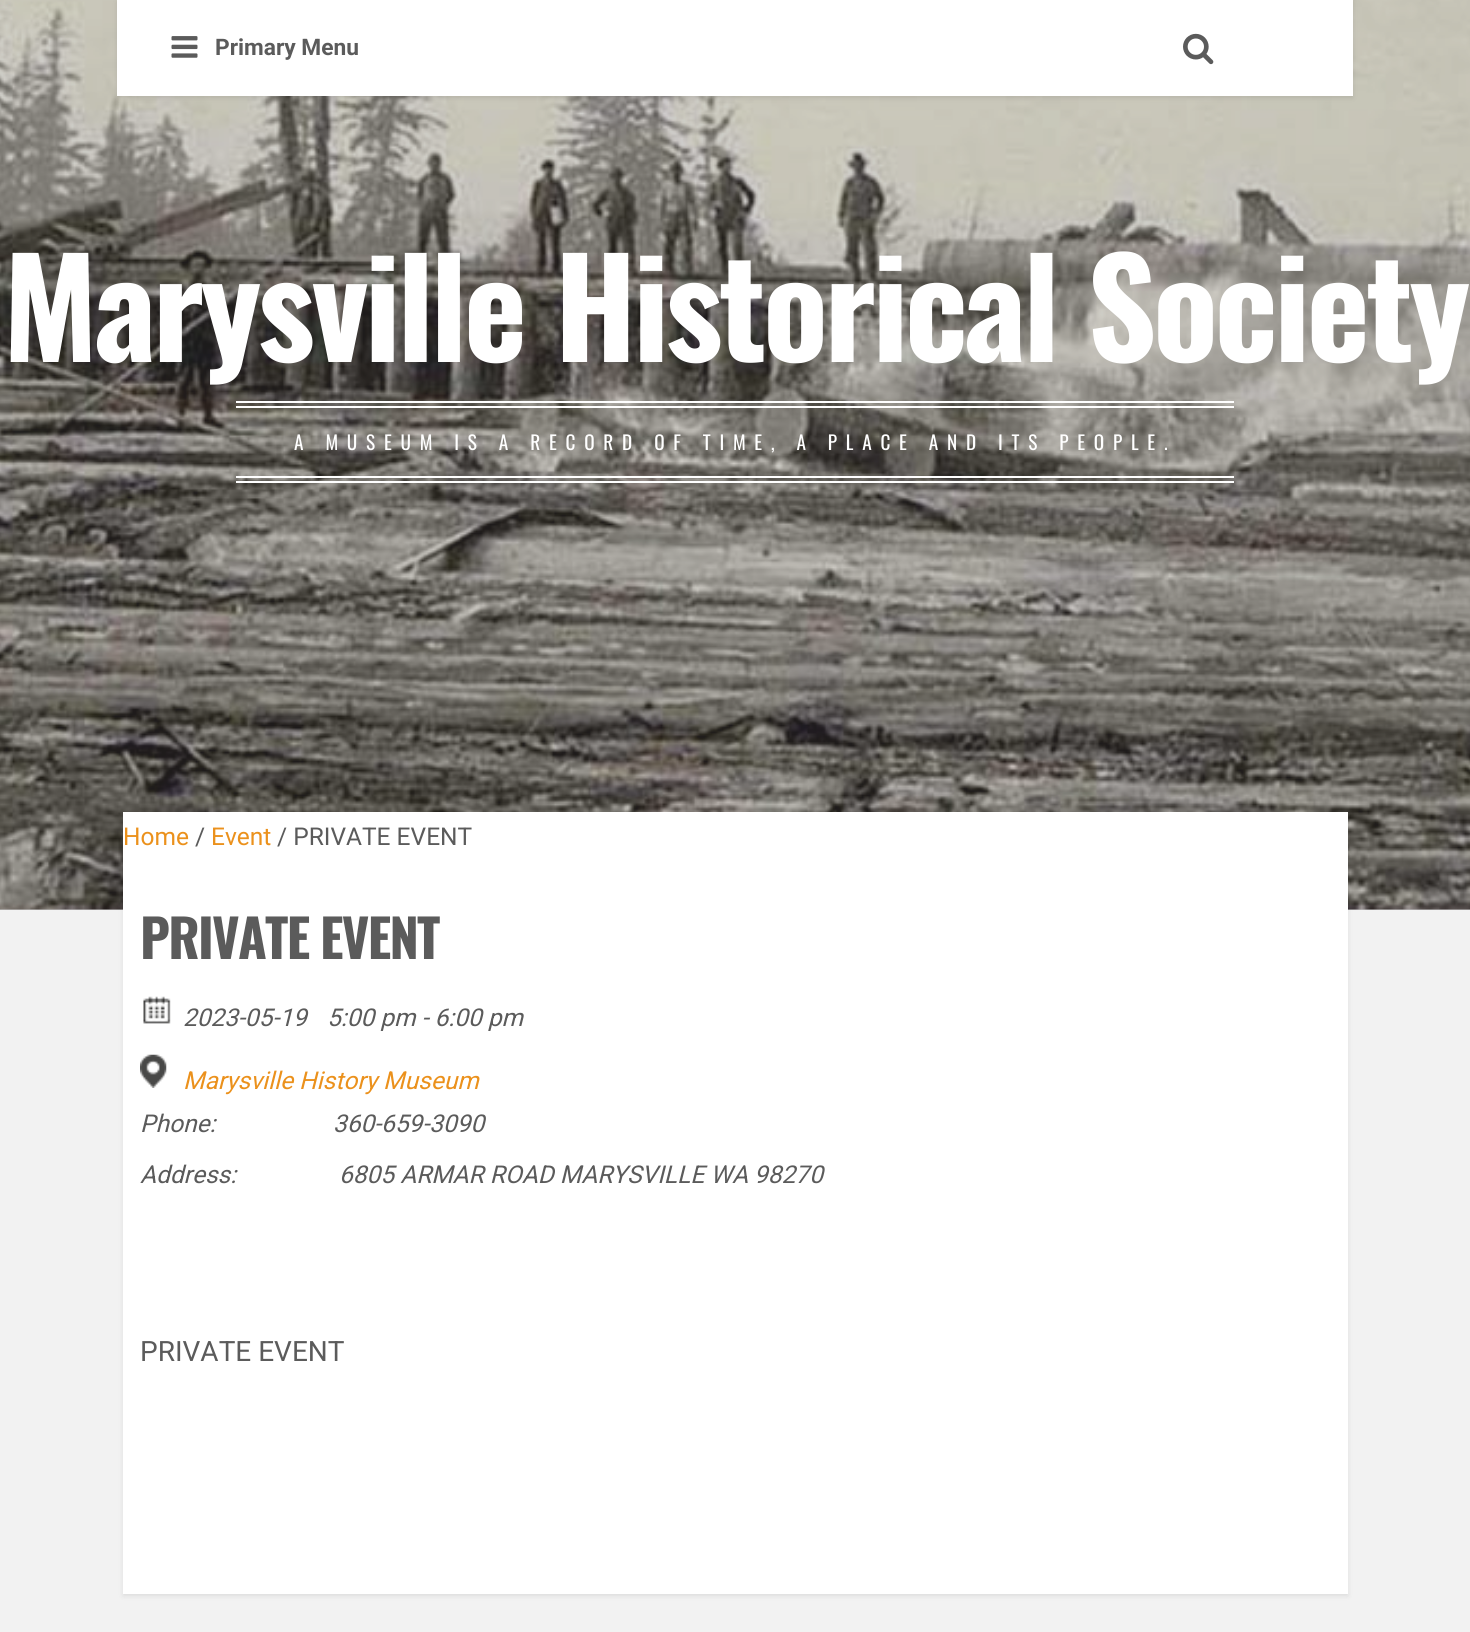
#include <cairo.h>
#include <math.h>
#include <stddef.h>


static void set_color(cairo_t *cr, unsigned color) {
    cairo_set_source_rgb(cr, (color >> 16) / 255.0, (color >> 8 & 255) / 255.0, (color & 255) / 255.0);
}

static void draw_text(cairo_t *cr, double x, double y, const char *s, const char *family, double size, int italic, int bold, unsigned color) {
    cairo_select_font_face(cr, family, italic ? CAIRO_FONT_SLANT_ITALIC : CAIRO_FONT_SLANT_NORMAL,
        bold ? CAIRO_FONT_WEIGHT_BOLD : CAIRO_FONT_WEIGHT_NORMAL);
    cairo_set_font_size(cr, size);
    set_color(cr, color);
    cairo_move_to(cr, x, y);
    cairo_show_text(cr, s);
}

static void draw_spaced(cairo_t *cr, double x, double y, const char *s, double letter, double word) {
    cairo_move_to(cr, x, y);
    while (*s) {
        char ch[5] = {0};
        int n = 0;
        do ch[n++] = *s++; while ((*s & 0xC0) == 0x80);
        cairo_show_text(cr, ch);
        cairo_rel_move_to(cr, letter + word * (*ch == ' '), 0);
    }
}

static void fill_rect(cairo_t *cr, double x, double y, double w, double h, unsigned color) {
    set_color(cr, color);
    cairo_rectangle(cr, x, y, w, h);
    cairo_fill(cr);
}

static void rounded_rect(cairo_t *cr, double x, double y, double w, double h, double r) {
    cairo_new_sub_path(cr);
    cairo_arc(cr, x + w - r, y + h - r, r, 0, M_PI / 2);
    cairo_arc(cr, x + r, y + h - r, r, M_PI / 2, M_PI);
    cairo_arc(cr, x + r, y + r, r, M_PI, 1.5 * M_PI);
    cairo_arc(cr, x + w - r, y + r, r, 1.5 * M_PI, 2 * M_PI);
    cairo_close_path(cr);
}

static void draw_shadow(cairo_t *cr, double x, double y, double w, double h, double r, double blur, double alpha) {
    cairo_push_group_with_content(cr, CAIRO_CONTENT_ALPHA);
    cairo_set_operator(cr, CAIRO_OPERATOR_SOURCE);
    for (int i = 15; i >= -15 && fmin(w, h) + blur * i / 3 > 0; i -= 2) {
        double e = blur * i / 6;
        cairo_set_source_rgba(cr, 0, 0, 0, alpha * erfc((i - 1) / 8.5) / 2);
        rounded_rect(cr, x - e, y - e, w + 2 * e, h + 2 * e, fmax(0, fmin(r + e + blur * .6, fmin(w, h) / 2 + e)));
        cairo_fill(cr);
    }
    cairo_pattern_t *soft = cairo_pop_group(cr);
    cairo_mask(cr, soft);
    cairo_pattern_destroy(soft);
}

static void draw_image(cairo_t *cr, const char *path, double x, double y, double w, double h) {
    cairo_surface_t *image = cairo_image_surface_create_from_png(path);
    cairo_save(cr);
    cairo_set_source_surface(cr, image, x, y);
    cairo_rectangle(cr, x, y, w, h);
    cairo_fill(cr);
    cairo_restore(cr);
    cairo_surface_destroy(image);
}

int main(void) {
    cairo_surface_t *surface = cairo_image_surface_create(CAIRO_FORMAT_RGB24, 1470, 1632);
    cairo_t *cr = cairo_create(surface);
    cairo_font_options_t *options = cairo_font_options_create();
    cairo_font_options_set_hint_metrics(options, CAIRO_HINT_METRICS_OFF);
    cairo_font_options_set_hint_style(options, CAIRO_HINT_STYLE_NONE);
    cairo_set_font_options(cr, options);
    cairo_set_miter_limit(cr, 4);
    set_color(cr, 0xF2F2F2);
    cairo_paint(cr);
    fill_rect(cr, 0, 909, 1470, 1, 0xC5C5C5);
    draw_image(cr, "assets/img3.png", 0, 0, 1470, 910);
    set_color(cr, 0x0D0D0D);
    draw_shadow(cr, 117, 2, 1236, 96, 0, 2.5, 0.1);
    fill_rect(cr, 117, 0, 1236, 96, 0xFFFFFF);
    draw_image(cr, "assets/img1.png", 171, 36, 27, 22);
    draw_text(cr, 215, 55, "Primary Menu", "Roboto", 22.75, 0, 1, 0x5B5B5B);
    draw_image(cr, "assets/img2.png", 1183, 33, 31, 32);
    cairo_select_font_face(cr, "Oswald", CAIRO_FONT_SLANT_NORMAL, CAIRO_FONT_WEIGHT_BOLD);
    cairo_set_font_size(cr, 134.75);
    set_color(cr, 0xFFFFFF);
    draw_spaced(cr, 3, 362, "Marysville Historical Society", -3.5, 0);
    fill_rect(cr, 236, 401, 998, 2, 0xFFFFFF);
    fill_rect(cr, 236, 406, 998, 2, 0xFFFFFF);
    fill_rect(cr, 236, 476, 998, 2, 0xFFFFFF);
    fill_rect(cr, 236, 481, 998, 2, 0xFFFFFF);
    cairo_select_font_face(cr, "Oswald", CAIRO_FONT_SLANT_NORMAL, CAIRO_FONT_WEIGHT_NORMAL);
    cairo_set_font_size(cr, 19.25);
    draw_spaced(cr, 294, 450, "A MUSEUM IS A RECORD OF TIME, A PLACE AND ITS PEOPLE.", 8.75, 0);
    set_color(cr, 0x0D0D0D);
    draw_shadow(cr, 123, 814, 1225, 782, 0, 2.5, 0.1);
    fill_rect(cr, 123, 812, 1225, 782, 0xFFFFFF);
    draw_text(cr, 123, 845, "Home", "Roboto", 24.5, 0, 0, 0xEB911C);
    draw_text(cr, 195, 845, "/", "Roboto", 24.5, 0, 0, 0x5B5B5B);
    draw_text(cr, 211, 845, "Event", "Roboto", 24.5, 0, 0, 0xEB911C);
    draw_text(cr, 277, 845, "/ PRIVATE EVENT", "Roboto", 24.5, 0, 0, 0x5B5B5B);
    cairo_select_font_face(cr, "Oswald", CAIRO_FONT_SLANT_NORMAL, CAIRO_FONT_WEIGHT_BOLD);
    cairo_set_font_size(cr, 52.5);
    draw_spaced(cr, 140, 959, "PRIVATE EVENT", -1.75, 0);
    draw_image(cr, "assets/img4.png", 143, 996, 28, 28);
    draw_text(cr, 183, 1026, "2023-05-19", "Roboto", 24.5, 1, 0, 0x5B5B5B);
    draw_text(cr, 327, 1026, "5:00 pm - 6:00 pm", "Roboto", 24.5, 1, 0, 0x5B5B5B);
    draw_image(cr, "assets/img5.png", 140, 1054, 27, 34);
    draw_text(cr, 183, 1089, "Marysville History Museum", "Roboto", 24.5, 1, 0, 0xEB911C);
    draw_text(cr, 140, 1132, "Phone:", "Roboto", 24.5, 1, 0, 0x5B5B5B);
    draw_text(cr, 333, 1132, "360-659-3090", "Roboto", 24.5, 1, 0, 0x5B5B5B);
    draw_text(cr, 140, 1183, "Address:", "Roboto", 24.5, 1, 0, 0x5B5B5B);
    draw_text(cr, 339, 1183, "6805 ARMAR ROAD MARYSVILLE WA 98270", "Roboto", 24.5, 1, 0, 0x5B5B5B);
    draw_text(cr, 140, 1361, "PRIVATE EVENT", "Roboto", 28, 0, 0, 0x5B5B5B);
    cairo_surface_write_to_png(surface, "output.png");
    cairo_font_options_destroy(options);
    cairo_destroy(cr);
    cairo_surface_destroy(surface);
    return 0;
}
